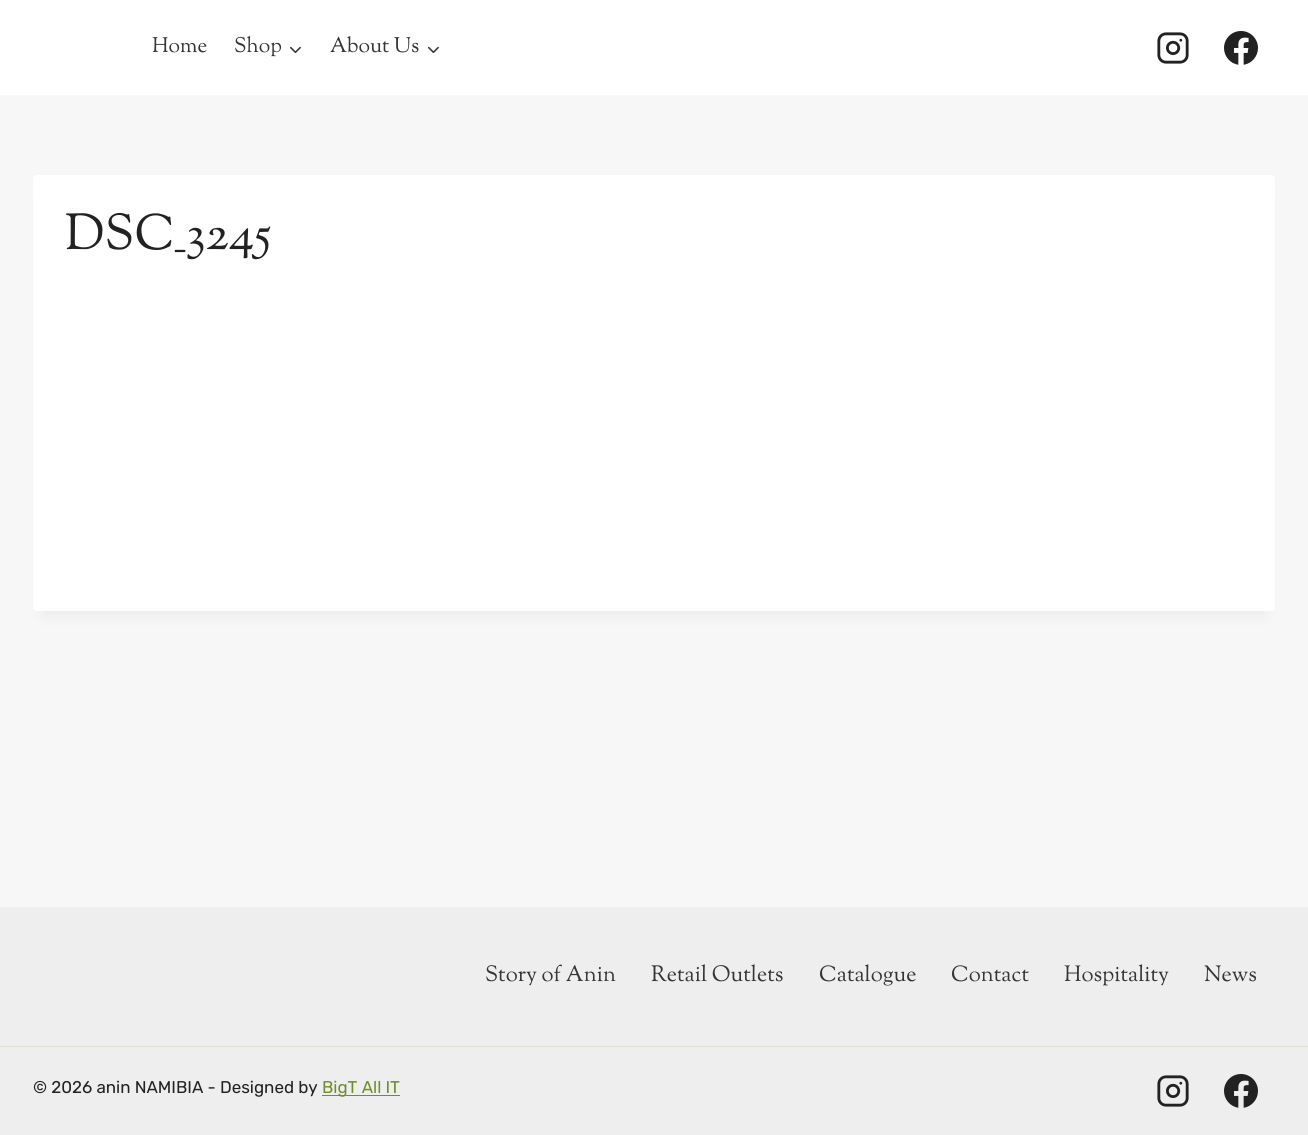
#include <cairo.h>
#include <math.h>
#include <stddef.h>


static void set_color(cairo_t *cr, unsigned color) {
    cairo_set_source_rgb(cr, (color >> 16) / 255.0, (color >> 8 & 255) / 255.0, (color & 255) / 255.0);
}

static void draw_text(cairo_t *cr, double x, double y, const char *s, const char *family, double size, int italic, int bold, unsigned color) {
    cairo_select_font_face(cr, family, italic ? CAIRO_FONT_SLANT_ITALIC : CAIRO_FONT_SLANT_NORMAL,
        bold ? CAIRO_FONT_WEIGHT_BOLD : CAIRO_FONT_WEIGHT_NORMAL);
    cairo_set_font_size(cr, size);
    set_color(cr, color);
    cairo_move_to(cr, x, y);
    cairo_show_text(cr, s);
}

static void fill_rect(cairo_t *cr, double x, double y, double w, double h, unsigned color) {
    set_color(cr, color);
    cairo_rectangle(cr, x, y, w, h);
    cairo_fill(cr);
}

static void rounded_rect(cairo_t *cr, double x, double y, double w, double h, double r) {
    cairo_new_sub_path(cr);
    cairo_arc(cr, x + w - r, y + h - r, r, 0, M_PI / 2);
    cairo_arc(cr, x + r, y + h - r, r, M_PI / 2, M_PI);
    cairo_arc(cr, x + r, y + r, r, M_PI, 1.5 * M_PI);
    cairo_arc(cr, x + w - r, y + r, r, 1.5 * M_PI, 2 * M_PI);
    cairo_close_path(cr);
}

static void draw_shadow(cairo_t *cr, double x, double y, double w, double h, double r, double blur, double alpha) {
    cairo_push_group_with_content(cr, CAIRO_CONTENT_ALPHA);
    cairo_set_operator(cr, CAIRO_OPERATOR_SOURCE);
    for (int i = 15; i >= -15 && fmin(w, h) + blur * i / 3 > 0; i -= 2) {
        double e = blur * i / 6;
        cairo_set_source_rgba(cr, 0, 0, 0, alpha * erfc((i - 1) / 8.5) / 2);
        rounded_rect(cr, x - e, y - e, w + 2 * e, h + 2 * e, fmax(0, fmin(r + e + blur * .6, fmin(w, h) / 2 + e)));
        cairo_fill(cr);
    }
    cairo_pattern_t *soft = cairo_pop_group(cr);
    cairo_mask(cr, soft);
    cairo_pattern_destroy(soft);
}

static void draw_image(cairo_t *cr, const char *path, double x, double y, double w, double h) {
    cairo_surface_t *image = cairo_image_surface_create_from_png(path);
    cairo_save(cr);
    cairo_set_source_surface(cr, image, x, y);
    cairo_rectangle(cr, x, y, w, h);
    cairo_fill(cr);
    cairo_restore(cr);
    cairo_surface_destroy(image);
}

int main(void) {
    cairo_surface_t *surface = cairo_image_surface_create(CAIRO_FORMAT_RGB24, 1308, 1135);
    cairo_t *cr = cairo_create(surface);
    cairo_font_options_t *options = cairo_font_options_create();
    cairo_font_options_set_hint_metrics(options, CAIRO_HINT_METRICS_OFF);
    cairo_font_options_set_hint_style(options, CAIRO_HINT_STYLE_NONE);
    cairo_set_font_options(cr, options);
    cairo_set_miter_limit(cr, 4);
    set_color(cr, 0xF7F7F7);
    cairo_paint(cr);
    fill_rect(cr, 0, 0, 1308, 95, 0xFFFFFF);
    draw_text(cr, 152, 52, "Home", "Sorts Mill Goudy", 21, 0, 0, 0x353535);
    draw_text(cr, 234, 52, "Shop", "Sorts Mill Goudy", 21, 0, 0, 0x353535);
    draw_image(cr, "assets/img1.png", 290, 46, 11, 7);
    draw_text(cr, 330, 52, "About Us", "Sorts Mill Goudy", 21, 0, 0, 0x353535);
    draw_image(cr, "assets/img1.png", 428, 46, 11, 7);
    draw_image(cr, "assets/img2.png", 1157, 32, 32, 32);
    draw_image(cr, "assets/img3.png", 1224, 31, 34, 34);
    set_color(cr, 0x000000);
    draw_shadow(cr, 43, 200, 1222, 416, 0, 7.5, 0.05);
    set_color(cr, 0xFFFFFF);
    rounded_rect(cr, 33, 175, 1242, 436, 4);
    cairo_fill(cr);
    draw_text(cr, 65, 249, "DSC_3245", "Sorts Mill Goudy", 50, 0, 0, 0x222222);
    fill_rect(cr, 0, 907, 1308, 228, 0xEEEEEE);
    draw_text(cr, 485, 981, "Story of Anin", "Sorts Mill Goudy", 22, 0, 0, 0x353535);
    draw_text(cr, 651, 981, "Retail Outlets", "Sorts Mill Goudy", 22, 0, 0, 0x353535);
    draw_text(cr, 819, 981, "Catalogue", "Sorts Mill Goudy", 22, 0, 0, 0x353535);
    draw_text(cr, 951, 981, "Contact", "Sorts Mill Goudy", 22, 0, 0, 0x353535);
    draw_text(cr, 1064, 981, "Hospitality", "Sorts Mill Goudy", 22, 0, 0, 0x353535);
    draw_text(cr, 1204, 981, "News", "Sorts Mill Goudy", 22, 0, 0, 0x353535);
    fill_rect(cr, 0, 1046, 1308, 1, 0xE0DDD7);
    draw_text(cr, 33, 1093, "© 2026 anin NAMIBIA - Designed by", "Rubik", 17, 0, 0, 0x222222);
    fill_rect(cr, 322, 1095, 78, 1, 0x6F8D29);
    draw_text(cr, 322, 1093, "BigT All IT", "Rubik", 17, 0, 0, 0x6F8D29);
    draw_image(cr, "assets/img4.png", 1157, 1075, 32, 32);
    draw_image(cr, "assets/img5.png", 1224, 1074, 34, 34);
    cairo_surface_write_to_png(surface, "output.png");
    cairo_font_options_destroy(options);
    cairo_destroy(cr);
    cairo_surface_destroy(surface);
    return 0;
}
